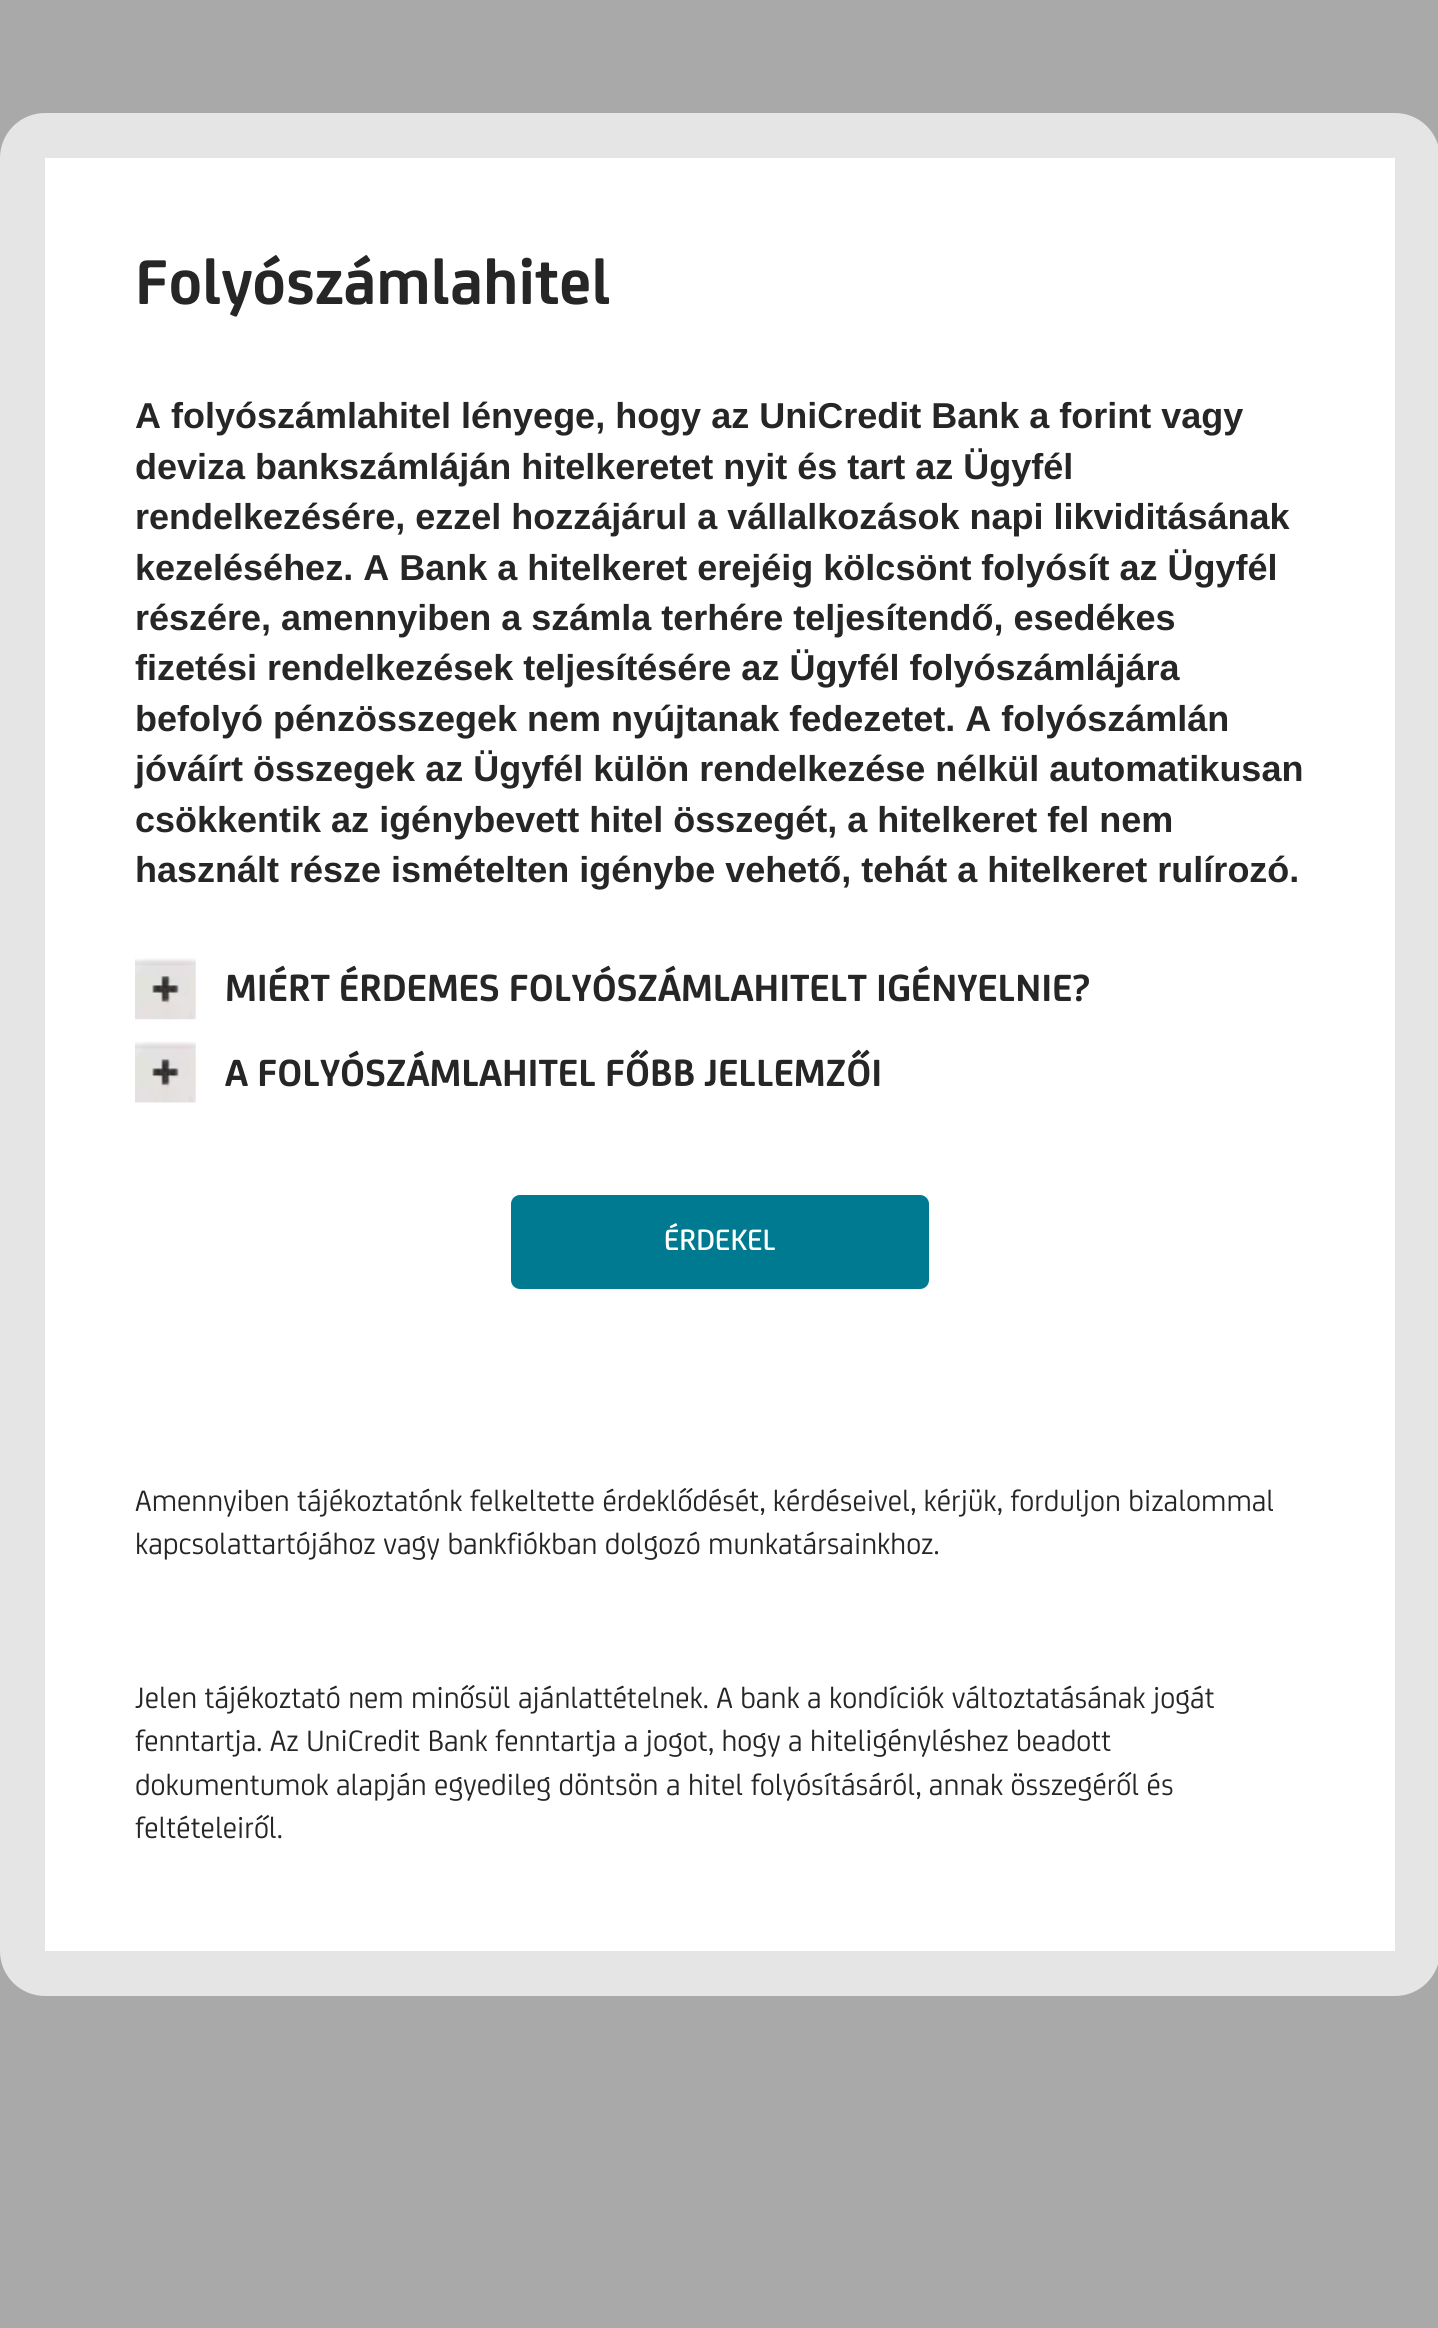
#include <cairo.h>
#include <math.h>
#include <stddef.h>


static void set_color(cairo_t *cr, unsigned color) {
    cairo_set_source_rgb(cr, (color >> 16) / 255.0, (color >> 8 & 255) / 255.0, (color & 255) / 255.0);
}

static void draw_text(cairo_t *cr, double x, double y, const char *s, const char *family, double size, int italic, int bold, unsigned color) {
    cairo_select_font_face(cr, family, italic ? CAIRO_FONT_SLANT_ITALIC : CAIRO_FONT_SLANT_NORMAL,
        bold ? CAIRO_FONT_WEIGHT_BOLD : CAIRO_FONT_WEIGHT_NORMAL);
    cairo_set_font_size(cr, size);
    set_color(cr, color);
    cairo_move_to(cr, x, y);
    cairo_show_text(cr, s);
}

static void rounded_rect(cairo_t *cr, double x, double y, double w, double h, double r) {
    cairo_new_sub_path(cr);
    cairo_arc(cr, x + w - r, y + h - r, r, 0, M_PI / 2);
    cairo_arc(cr, x + r, y + h - r, r, M_PI / 2, M_PI);
    cairo_arc(cr, x + r, y + r, r, M_PI, 1.5 * M_PI);
    cairo_arc(cr, x + w - r, y + r, r, 1.5 * M_PI, 2 * M_PI);
    cairo_close_path(cr);
}

static void draw_image(cairo_t *cr, const char *path, double x, double y, double w, double h) {
    cairo_surface_t *image = cairo_image_surface_create_from_png(path);
    cairo_save(cr);
    cairo_set_source_surface(cr, image, x, y);
    cairo_rectangle(cr, x, y, w, h);
    cairo_fill(cr);
    cairo_restore(cr);
    cairo_surface_destroy(image);
}

int main(void) {
    cairo_surface_t *surface = cairo_image_surface_create(CAIRO_FORMAT_RGB24, 1438, 2328);
    cairo_t *cr = cairo_create(surface);
    cairo_font_options_t *options = cairo_font_options_create();
    cairo_font_options_set_hint_metrics(options, CAIRO_HINT_METRICS_OFF);
    cairo_font_options_set_hint_style(options, CAIRO_HINT_STYLE_NONE);
    cairo_set_font_options(cr, options);
    cairo_set_miter_limit(cr, 4);
    set_color(cr, 0xA9A9A9);
    cairo_paint(cr);
    set_color(cr, 0xFFFFFF);
    rounded_rect(cr, 22.5, 135.5, 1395, 1838, 22.5);
    cairo_fill_preserve(cr);
    set_color(cr, 0xE5E5E5);
    cairo_set_line_width(cr, 45);
    cairo_stroke(cr);
    draw_text(cr, 135, 304, "Folyószámlahitel", "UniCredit", 67.5, 0, 1, 0x262626);
    draw_text(cr, 135, 428, "A folyószámlahitel lényege, hogy az UniCredit Bank a forint vagy", "Liberation Sans", 36, 0, 1, 0x262626);
    draw_text(cr, 135, 479, "deviza bankszámláján hitelkeretet nyit és tart az Ügyfél", "Liberation Sans", 36, 0, 1, 0x262626);
    draw_text(cr, 135, 529, "rendelkezésére, ezzel hozzájárul a vállalkozások napi likviditásának", "Liberation Sans", 36, 0, 1, 0x262626);
    draw_text(cr, 135, 580, "kezeléséhez. A Bank a hitelkeret erejéig kölcsönt folyósít az Ügyfél", "Liberation Sans", 36, 0, 1, 0x262626);
    draw_text(cr, 135, 630, "részére, amennyiben a számla terhére teljesítendő, esedékes", "Liberation Sans", 36, 0, 1, 0x262626);
    draw_text(cr, 135, 680, "fizetési rendelkezések teljesítésére az Ügyfél folyószámlájára", "Liberation Sans", 36, 0, 1, 0x262626);
    draw_text(cr, 135, 731, "befolyó pénzösszegek nem nyújtanak fedezetet. A folyószámlán", "Liberation Sans", 36, 0, 1, 0x262626);
    draw_text(cr, 135, 781, "jóváírt összegek az Ügyfél külön rendelkezése nélkül automatikusan", "Liberation Sans", 36, 0, 1, 0x262626);
    draw_text(cr, 135, 832, "csökkentik az igénybevett hitel összegét, a hitelkeret fel nem", "Liberation Sans", 36, 0, 1, 0x262626);
    draw_text(cr, 135, 882, "használt része ismételten igénybe vehető, tehát a hitelkeret rulírozó.", "Liberation Sans", 36, 0, 1, 0x262626);
    draw_image(cr, "assets/img1.png", 135, 958, 61, 62);
    draw_text(cr, 225, 1001, "MIÉRT ÉRDEMES FOLYÓSZÁMLAHITELT IGÉNYELNIE?", "UniCredit", 40.5, 0, 1, 0x262626);
    draw_image(cr, "assets/img2.png", 135, 1041, 61, 62);
    draw_text(cr, 225, 1086, "A FOLYÓSZÁMLAHITEL FŐBB JELLEMZŐI", "UniCredit", 40.5, 0, 1, 0x262626);
    set_color(cr, 0x007A91);
    rounded_rect(cr, 512, 1196, 416, 92, 8);
    cairo_fill_preserve(cr);
    cairo_set_line_width(cr, 2);
    cairo_stroke(cr);
    draw_text(cr, 664, 1250, "ÉRDEKEL", "UniCredit Medium", 31.5, 0, 0, 0xFFFFFF);
    draw_text(cr, 135, 1511, "Amennyiben tájékoztatónk felkeltette érdeklődését, kérdéseivel, kérjük, forduljon bizalommal", "UniCredit", 31.5, 0, 0, 0x262626);
    draw_text(cr, 135, 1554, "kapcsolattartójához vagy bankfiókban dolgozó munkatársainkhoz.", "UniCredit", 31.5, 0, 0, 0x262626);
    draw_text(cr, 135, 1708, "Jelen tájékoztató nem minősül ajánlattételnek. A bank a kondíciók változtatásának jogát", "UniCredit", 31.5, 0, 0, 0x262626);
    draw_text(cr, 135, 1751, "fenntartja. Az UniCredit Bank fenntartja a jogot, hogy a hiteligényléshez beadott", "UniCredit", 31.5, 0, 0, 0x262626);
    draw_text(cr, 135, 1795, "dokumentumok alapján egyedileg döntsön a hitel folyósításáról, annak összegéről és", "UniCredit", 31.5, 0, 0, 0x262626);
    draw_text(cr, 135, 1838, "feltételeiről.", "UniCredit", 31.5, 0, 0, 0x262626);
    cairo_surface_write_to_png(surface, "output.png");
    cairo_font_options_destroy(options);
    cairo_destroy(cr);
    cairo_surface_destroy(surface);
    return 0;
}
